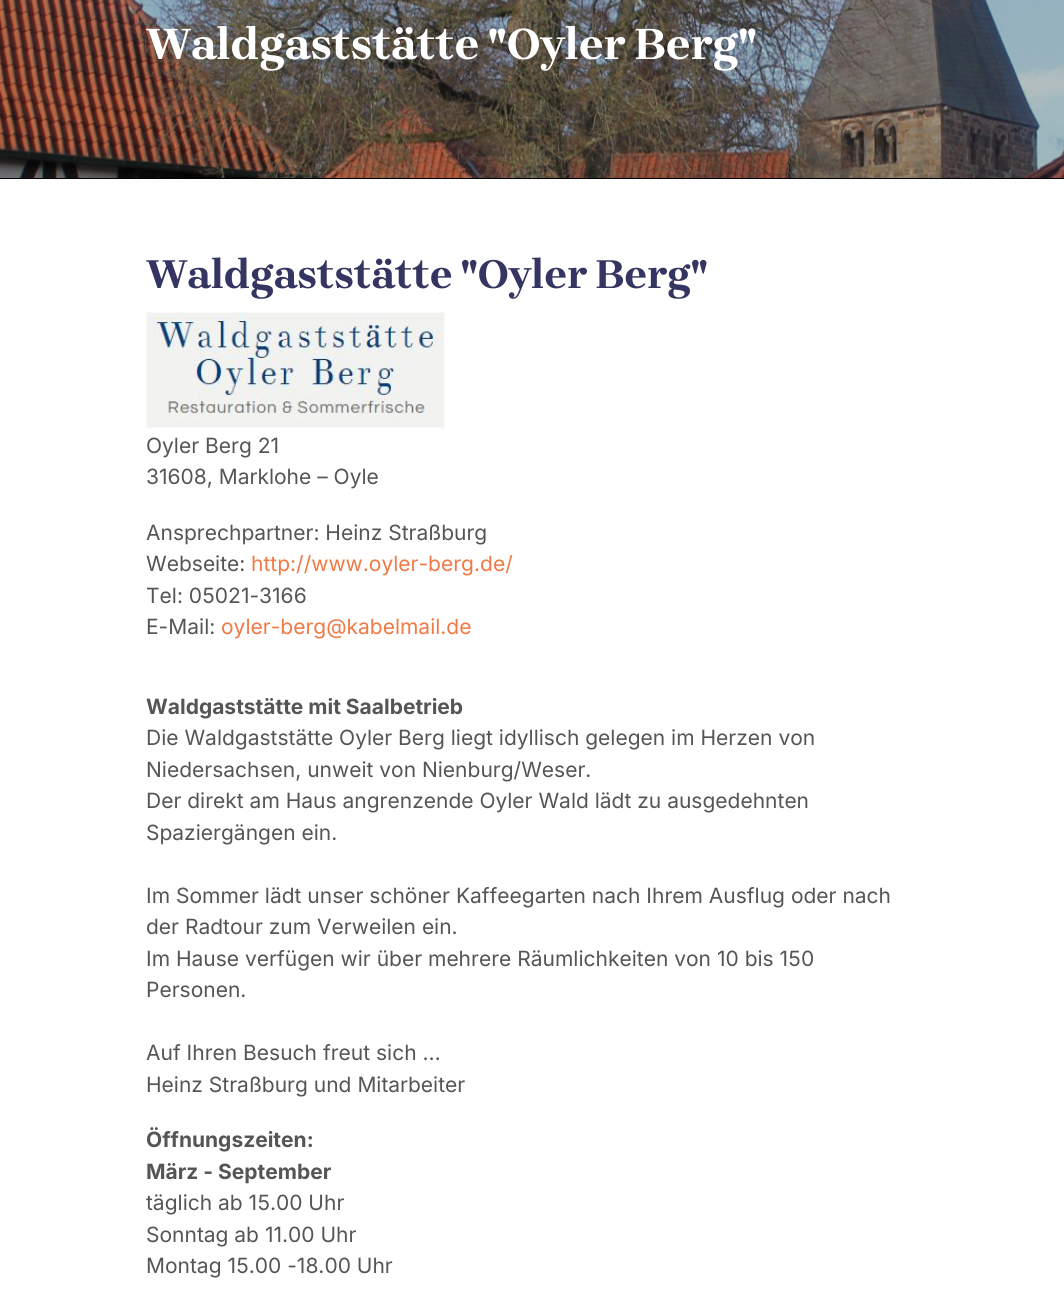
#include <cairo.h>
#include <math.h>
#include <stddef.h>


static void set_color(cairo_t *cr, unsigned color) {
    cairo_set_source_rgb(cr, (color >> 16) / 255.0, (color >> 8 & 255) / 255.0, (color & 255) / 255.0);
}

static void draw_text(cairo_t *cr, double x, double y, const char *s, const char *family, double size, int italic, int bold, unsigned color) {
    cairo_select_font_face(cr, family, italic ? CAIRO_FONT_SLANT_ITALIC : CAIRO_FONT_SLANT_NORMAL,
        bold ? CAIRO_FONT_WEIGHT_BOLD : CAIRO_FONT_WEIGHT_NORMAL);
    cairo_set_font_size(cr, size);
    set_color(cr, color);
    cairo_move_to(cr, x, y);
    cairo_show_text(cr, s);
}

static void fill_rect(cairo_t *cr, double x, double y, double w, double h, unsigned color) {
    set_color(cr, color);
    cairo_rectangle(cr, x, y, w, h);
    cairo_fill(cr);
}

static void draw_image(cairo_t *cr, const char *path, double x, double y, double w, double h) {
    cairo_surface_t *image = cairo_image_surface_create_from_png(path);
    cairo_save(cr);
    cairo_set_source_surface(cr, image, x, y);
    cairo_rectangle(cr, x, y, w, h);
    cairo_fill(cr);
    cairo_restore(cr);
    cairo_surface_destroy(image);
}

int main(void) {
    cairo_surface_t *surface = cairo_image_surface_create(CAIRO_FORMAT_RGB24, 1064, 1290);
    cairo_t *cr = cairo_create(surface);
    cairo_font_options_t *options = cairo_font_options_create();
    cairo_font_options_set_hint_metrics(options, CAIRO_HINT_METRICS_OFF);
    cairo_font_options_set_hint_style(options, CAIRO_HINT_STYLE_NONE);
    cairo_set_font_options(cr, options);
    cairo_set_miter_limit(cr, 4);
    set_color(cr, 0xFFFFFF);
    cairo_paint(cr);
    fill_rect(cr, 0, 178, 1064, 1, 0x000000);
    draw_image(cr, "assets/img1.png", 0, 0, 1064, 178);
    draw_text(cr, 146, 59, "Waldgaststätte \"Oyler Berg\"", "Brygada 1918", 45, 0, 1, 0xFFFFFF);
    draw_text(cr, 146, 288, "Waldgaststätte \"Oyler Berg\"", "Brygada 1918", 41.4, 0, 1, 0x343661);
    draw_image(cr, "assets/img2.png", 145, 311, 300, 118);
    draw_text(cr, 146, 453, "Oyler Berg 21", "Inter", 21, 0, 0, 0x555555);
    draw_text(cr, 146, 484, "31608, Marklohe – Oyle", "Inter", 21, 0, 0, 0x555555);
    draw_text(cr, 146, 540, "Ansprechpartner: Heinz Straßburg", "Inter", 21, 0, 0, 0x555555);
    draw_text(cr, 146, 571, "Webseite:", "Inter", 21, 0, 0, 0x555555);
    draw_text(cr, 251, 571, "http://www.oyler-berg.de/", "Inter", 21, 0, 0, 0xF17945);
    draw_text(cr, 146, 603, "Tel: 05021-3166", "Inter", 21, 0, 0, 0x555555);
    draw_text(cr, 146, 634, "E-Mail:", "Inter", 21, 0, 0, 0x555555);
    draw_text(cr, 221, 634, "oyler-berg@kabelmail.de", "Inter", 21, 0, 0, 0xF17945);
    draw_text(cr, 146, 714, "Waldgaststätte mit Saalbetrieb", "Inter", 21, 0, 1, 0x555555);
    draw_text(cr, 146, 745, "Die Waldgaststätte Oyler Berg liegt idyllisch gelegen im Herzen von", "Inter", 21, 0, 0, 0x555555);
    draw_text(cr, 146, 777, "Niedersachsen, unweit von Nienburg/Weser.", "Inter", 21, 0, 0, 0x555555);
    draw_text(cr, 146, 808, "Der direkt am Haus angrenzende Oyler Wald lädt zu ausgedehnten", "Inter", 21, 0, 0, 0x555555);
    draw_text(cr, 146, 840, "Spaziergängen ein.", "Inter", 21, 0, 0, 0x555555);
    draw_text(cr, 146, 903, "Im Sommer lädt unser schöner Kaffeegarten nach Ihrem Ausflug oder nach", "Inter", 21, 0, 0, 0x555555);
    draw_text(cr, 146, 934, "der Radtour zum Verweilen ein.", "Inter", 21, 0, 0, 0x555555);
    draw_text(cr, 146, 966, "Im Hause verfügen wir über mehrere Räumlichkeiten von 10 bis 150", "Inter", 21, 0, 0, 0x555555);
    draw_text(cr, 146, 997, "Personen.", "Inter", 21, 0, 0, 0x555555);
    draw_text(cr, 146, 1060, "Auf Ihren Besuch freut sich …", "Inter", 21, 0, 0, 0x555555);
    draw_text(cr, 146, 1092, "Heinz Straßburg und Mitarbeiter", "Inter", 21, 0, 0, 0x555555);
    draw_text(cr, 146, 1147, "Öffnungszeiten:", "Inter", 21, 0, 1, 0x555555);
    draw_text(cr, 146, 1179, "März - September", "Inter", 21, 0, 1, 0x555555);
    draw_text(cr, 146, 1210, "täglich ab 15.00 Uhr", "Inter", 21, 0, 0, 0x555555);
    draw_text(cr, 146, 1242, "Sonntag ab 11.00 Uhr", "Inter", 21, 0, 0, 0x555555);
    draw_text(cr, 146, 1273, "Montag 15.00 -18.00 Uhr", "Inter", 21, 0, 0, 0x555555);
    cairo_surface_write_to_png(surface, "output.png");
    cairo_font_options_destroy(options);
    cairo_destroy(cr);
    cairo_surface_destroy(surface);
    return 0;
}
